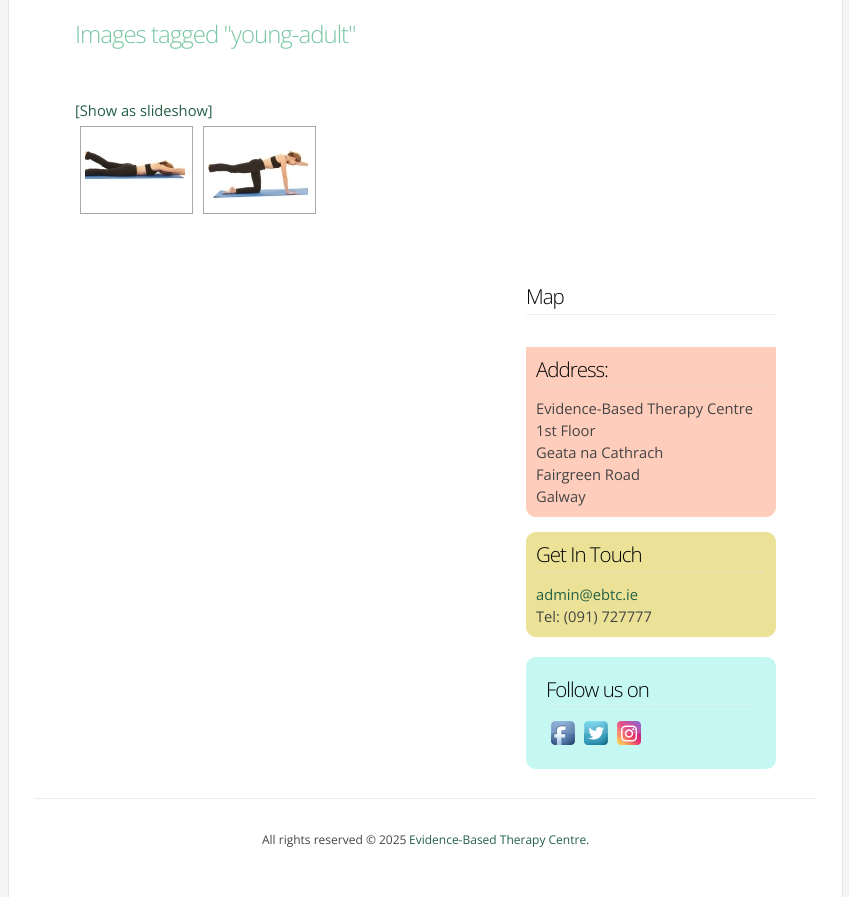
#include <cairo.h>
#include <math.h>
#include <stddef.h>


static void set_color(cairo_t *cr, unsigned color) {
    cairo_set_source_rgb(cr, (color >> 16) / 255.0, (color >> 8 & 255) / 255.0, (color & 255) / 255.0);
}

static void draw_text(cairo_t *cr, double x, double y, const char *s, const char *family, double size, int italic, int bold, unsigned color) {
    cairo_select_font_face(cr, family, italic ? CAIRO_FONT_SLANT_ITALIC : CAIRO_FONT_SLANT_NORMAL,
        bold ? CAIRO_FONT_WEIGHT_BOLD : CAIRO_FONT_WEIGHT_NORMAL);
    cairo_set_font_size(cr, size);
    set_color(cr, color);
    cairo_move_to(cr, x, y);
    cairo_show_text(cr, s);
}

static void draw_spaced(cairo_t *cr, double x, double y, const char *s, double letter, double word) {
    cairo_move_to(cr, x, y);
    while (*s) {
        char ch[5] = {0};
        int n = 0;
        do ch[n++] = *s++; while ((*s & 0xC0) == 0x80);
        cairo_show_text(cr, ch);
        cairo_rel_move_to(cr, letter + word * (*ch == ' '), 0);
    }
}

static void fill_rect(cairo_t *cr, double x, double y, double w, double h, unsigned color) {
    set_color(cr, color);
    cairo_rectangle(cr, x, y, w, h);
    cairo_fill(cr);
}

static void rounded_rect(cairo_t *cr, double x, double y, double w, double h, double r) {
    cairo_new_sub_path(cr);
    cairo_arc(cr, x + w - r, y + h - r, r, 0, M_PI / 2);
    cairo_arc(cr, x + r, y + h - r, r, M_PI / 2, M_PI);
    cairo_arc(cr, x + r, y + r, r, M_PI, 1.5 * M_PI);
    cairo_arc(cr, x + w - r, y + r, r, 1.5 * M_PI, 2 * M_PI);
    cairo_close_path(cr);
}

static void draw_image(cairo_t *cr, const char *path, double x, double y, double w, double h) {
    cairo_surface_t *image = cairo_image_surface_create_from_png(path);
    cairo_save(cr);
    cairo_set_source_surface(cr, image, x, y);
    cairo_rectangle(cr, x, y, w, h);
    cairo_fill(cr);
    cairo_restore(cr);
    cairo_surface_destroy(image);
}

int main(void) {
    cairo_surface_t *surface = cairo_image_surface_create(CAIRO_FORMAT_RGB24, 849, 897);
    cairo_t *cr = cairo_create(surface);
    cairo_font_options_t *options = cairo_font_options_create();
    cairo_font_options_set_hint_metrics(options, CAIRO_HINT_METRICS_OFF);
    cairo_font_options_set_hint_style(options, CAIRO_HINT_STYLE_NONE);
    cairo_set_font_options(cr, options);
    cairo_set_miter_limit(cr, 4);
    set_color(cr, 0xF5F5F5);
    cairo_paint(cr);
    fill_rect(cr, 9, 0, 833, 897, 0xFFFFFF);
    fill_rect(cr, 842, 0, 1, 897, 0xE5E5E5);
    fill_rect(cr, 8, 0, 1, 897, 0xE5E5E5);
    cairo_select_font_face(cr, "Open Sans Light", CAIRO_FONT_SLANT_NORMAL, CAIRO_FONT_WEIGHT_NORMAL);
    cairo_set_font_size(cr, 24);
    set_color(cr, 0x78C6A3);
    draw_spaced(cr, 75, 43, "Images tagged \"young-adult\"", -1, 0);
    draw_text(cr, 75, 116, "[Show as slideshow]", "Open Sans", 14.7, 0, 0, 0x246045);
    cairo_rectangle(cr, 80.5, 126.5, 112, 87);
    set_color(cr, 0xA9A9A9);
    cairo_set_line_width(cr, 1);
    cairo_stroke(cr);
    draw_image(cr, "assets/img1.png", 85, 150, 100, 30);
    cairo_rectangle(cr, 203.5, 126.5, 112, 87);
    cairo_stroke(cr);
    draw_image(cr, "assets/img2.png", 208, 149, 100, 50);
    cairo_new_path(cr);
    cairo_move_to(cr, 526, 314.5);
    cairo_line_to(cr, 776, 314.5);
    set_color(cr, 0xDDDDDD);
    cairo_set_dash(cr, (double[]){1, 1}, 2, 0);
    cairo_stroke(cr);
    cairo_select_font_face(cr, "Open Sans Light", CAIRO_FONT_SLANT_NORMAL, CAIRO_FONT_WEIGHT_NORMAL);
    cairo_set_font_size(cr, 20.5);
    set_color(cr, 0x000000);
    draw_spaced(cr, 526, 304, "Map", -1, 0);
    set_color(cr, 0xFFCDBC);
    cairo_new_path(cr);
    cairo_move_to(cr, 526, 347);
    cairo_line_to(cr, 776, 347);
    cairo_line_to(cr, 776, 507);
    cairo_curve_to(cr, 776, 512.5, 771.5, 517, 766, 517);
    cairo_line_to(cr, 536, 517);
    cairo_curve_to(cr, 530.5, 517, 526, 512.5, 526, 507);
    cairo_close_path(cr);
    cairo_fill(cr);
    cairo_new_path(cr);
    cairo_move_to(cr, 536, 386.5);
    cairo_line_to(cr, 766, 386.5);
    set_color(cr, 0xDDDDDD);
    cairo_stroke(cr);
    set_color(cr, 0x000000);
    draw_spaced(cr, 536, 377, "Address:", -1, 0);
    draw_text(cr, 536, 414, "Evidence-Based Therapy Centre", "Open Sans", 14.7, 0, 0, 0x444444);
    draw_text(cr, 536, 436, "1st Floor", "Open Sans", 14.7, 0, 0, 0x444444);
    draw_text(cr, 536, 458, "Geata na Cathrach", "Open Sans", 14.7, 0, 0, 0x444444);
    draw_text(cr, 536, 480, "Fairgreen Road", "Open Sans", 14.7, 0, 0, 0x444444);
    draw_text(cr, 536, 502, "Galway", "Open Sans", 14.7, 0, 0, 0x444444);
    set_color(cr, 0xEBE297);
    rounded_rect(cr, 526, 532, 250, 105, 10);
    cairo_fill(cr);
    cairo_new_path(cr);
    cairo_move_to(cr, 536, 572.5);
    cairo_line_to(cr, 766, 572.5);
    set_color(cr, 0xDDDDDD);
    cairo_stroke(cr);
    cairo_select_font_face(cr, "Open Sans Light", CAIRO_FONT_SLANT_NORMAL, CAIRO_FONT_WEIGHT_NORMAL);
    cairo_set_font_size(cr, 20.5);
    set_color(cr, 0x000000);
    draw_spaced(cr, 536, 562, "Get In Touch", -1, 0);
    draw_text(cr, 536, 600, "admin@ebtc.ie", "Open Sans", 14.7, 0, 0, 0x246045);
    draw_text(cr, 536, 622, "Tel: (091) 727777", "Open Sans", 14.7, 0, 0, 0x444444);
    set_color(cr, 0xC5F8F2);
    rounded_rect(cr, 526, 657, 250, 112, 10);
    cairo_fill(cr);
    cairo_new_path(cr);
    cairo_move_to(cr, 546, 706.5);
    cairo_line_to(cr, 756, 706.5);
    set_color(cr, 0xDDDDDD);
    cairo_stroke(cr);
    cairo_select_font_face(cr, "Open Sans Light", CAIRO_FONT_SLANT_NORMAL, CAIRO_FONT_WEIGHT_NORMAL);
    cairo_set_font_size(cr, 20.5);
    set_color(cr, 0x000000);
    draw_spaced(cr, 546, 697, "Follow us on", -1, 0);
    draw_image(cr, "assets/img3.png", 551, 721, 24, 24);
    draw_image(cr, "assets/img4.png", 584, 721, 24, 24);
    draw_image(cr, "assets/img5.png", 617, 721, 24, 24);
    cairo_new_path(cr);
    cairo_move_to(cr, 35, 798.5);
    cairo_line_to(cr, 816, 798.5);
    set_color(cr, 0xDDDDDD);
    cairo_stroke(cr);
    draw_text(cr, 262, 844, "All rights reserved © 2025", "Open Sans", 12, 0, 0, 0x444444);
    draw_text(cr, 409, 844, "Evidence-Based Therapy Centre", "Open Sans", 12, 0, 0, 0x246045);
    draw_text(cr, 586, 844, ".", "Open Sans", 12, 0, 0, 0x444444);
    cairo_surface_write_to_png(surface, "output.png");
    cairo_font_options_destroy(options);
    cairo_destroy(cr);
    cairo_surface_destroy(surface);
    return 0;
}
